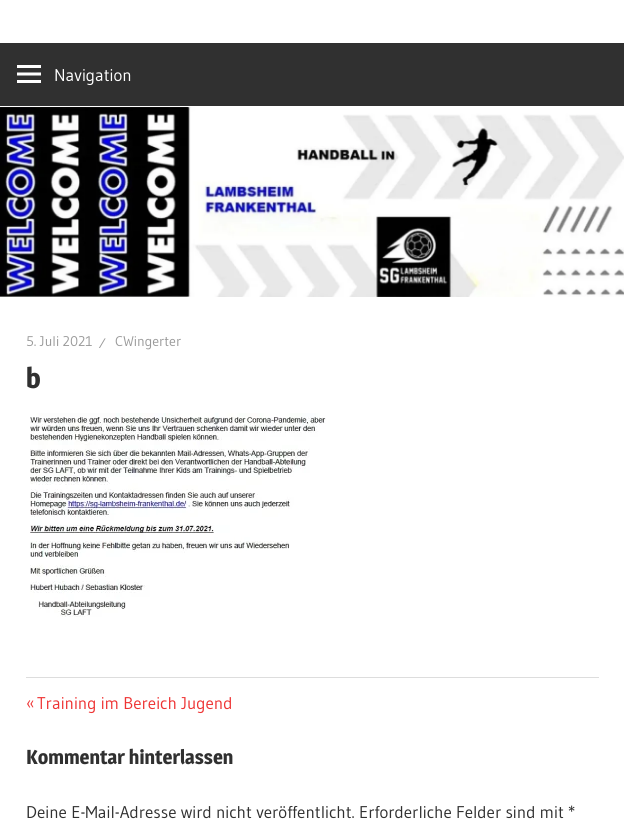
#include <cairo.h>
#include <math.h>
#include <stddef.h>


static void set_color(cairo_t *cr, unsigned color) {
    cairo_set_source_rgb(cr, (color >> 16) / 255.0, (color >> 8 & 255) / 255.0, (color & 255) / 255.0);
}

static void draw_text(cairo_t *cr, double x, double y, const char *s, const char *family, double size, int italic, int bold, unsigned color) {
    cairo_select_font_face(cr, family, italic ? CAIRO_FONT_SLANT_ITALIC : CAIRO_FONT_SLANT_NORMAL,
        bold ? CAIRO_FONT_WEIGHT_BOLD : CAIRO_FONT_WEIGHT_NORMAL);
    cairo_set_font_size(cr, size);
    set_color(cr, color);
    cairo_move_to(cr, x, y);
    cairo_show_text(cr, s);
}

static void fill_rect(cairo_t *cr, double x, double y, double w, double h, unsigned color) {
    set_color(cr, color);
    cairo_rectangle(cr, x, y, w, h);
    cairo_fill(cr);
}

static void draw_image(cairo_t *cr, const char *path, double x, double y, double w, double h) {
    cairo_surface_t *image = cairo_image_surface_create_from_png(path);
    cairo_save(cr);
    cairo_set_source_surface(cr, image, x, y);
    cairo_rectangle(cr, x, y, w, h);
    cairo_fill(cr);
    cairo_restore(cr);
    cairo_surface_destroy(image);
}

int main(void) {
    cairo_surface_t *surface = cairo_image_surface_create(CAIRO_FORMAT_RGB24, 624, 824);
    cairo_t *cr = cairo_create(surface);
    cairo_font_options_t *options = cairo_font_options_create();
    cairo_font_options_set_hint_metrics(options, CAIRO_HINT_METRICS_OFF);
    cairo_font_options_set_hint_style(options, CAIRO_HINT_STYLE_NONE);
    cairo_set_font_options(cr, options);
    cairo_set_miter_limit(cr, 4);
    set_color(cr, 0xFFFFFF);
    cairo_paint(cr);
    fill_rect(cr, 0, 43, 624, 63, 0x303030);
    draw_image(cr, "assets/img1.png", 17, 65, 24, 18);
    draw_text(cr, 54, 81, "Navigation", "Gudea", 17, 0, 0, 0xFFFFFF);
    draw_image(cr, "assets/img2.png", 0, 107, 624, 190);
    draw_text(cr, 26, 346, "5. Juli 2021", "Gudea", 14, 0, 0, 0x999999);
    draw_text(cr, 99, 348, "⁄", "Gudea", 14, 0, 0, 0x999999);
    draw_text(cr, 115, 346, "CWingerter", "Gudea", 14, 0, 0, 0x999999);
    draw_text(cr, 26, 388, "b", "Magra", 28, 0, 1, 0x303030);
    draw_image(cr, "assets/img3.png", 30, 413, 296, 204);
    fill_rect(cr, 26, 677, 573, 1, 0xDDDDDD);
    draw_text(cr, 26, 709, "«", "Gudea", 17, 0, 0, 0xEE3333);
    draw_text(cr, 37, 709, "Training im Bereich Jugend", "Gudea", 17, 0, 0, 0xEE3333);
    draw_text(cr, 26, 764, "Kommentar hinterlassen", "Magra", 20, 0, 1, 0x303030);
    draw_text(cr, 26, 818, "Deine E-Mail-Adresse wird nicht veröffentlicht. Erforderliche Felder sind mit *", "Gudea", 17, 0, 0, 0x303030);
    cairo_surface_write_to_png(surface, "output.png");
    cairo_font_options_destroy(options);
    cairo_destroy(cr);
    cairo_surface_destroy(surface);
    return 0;
}
